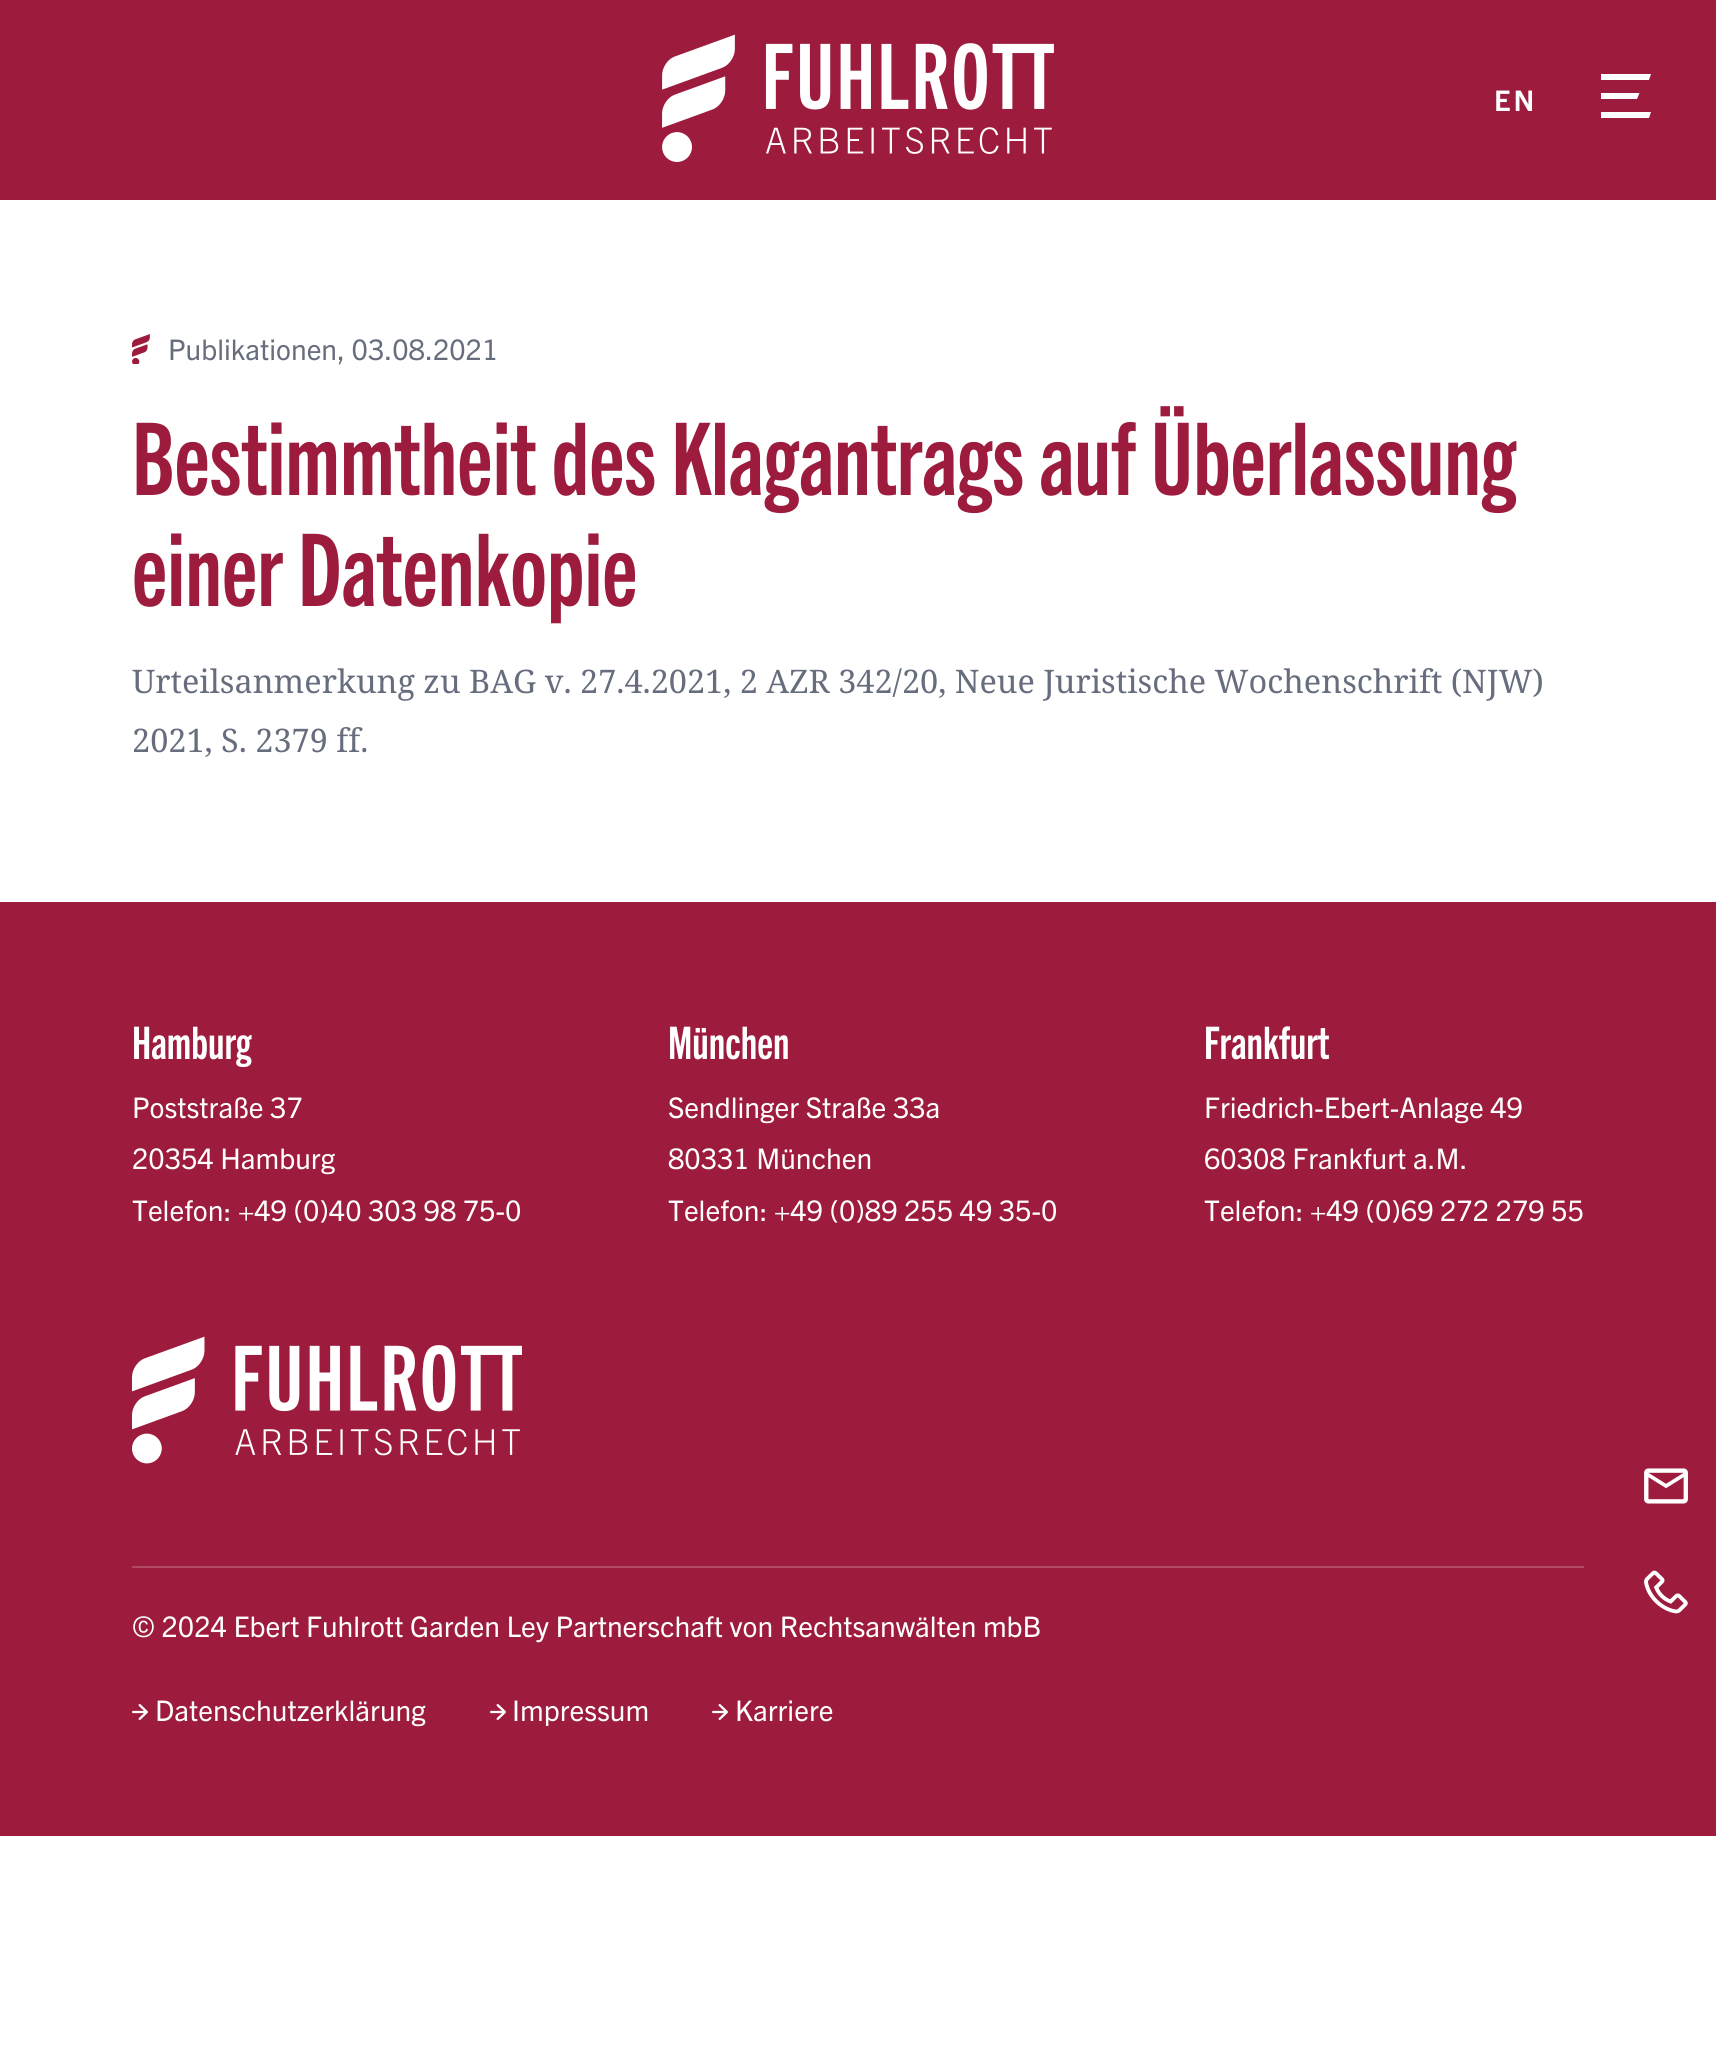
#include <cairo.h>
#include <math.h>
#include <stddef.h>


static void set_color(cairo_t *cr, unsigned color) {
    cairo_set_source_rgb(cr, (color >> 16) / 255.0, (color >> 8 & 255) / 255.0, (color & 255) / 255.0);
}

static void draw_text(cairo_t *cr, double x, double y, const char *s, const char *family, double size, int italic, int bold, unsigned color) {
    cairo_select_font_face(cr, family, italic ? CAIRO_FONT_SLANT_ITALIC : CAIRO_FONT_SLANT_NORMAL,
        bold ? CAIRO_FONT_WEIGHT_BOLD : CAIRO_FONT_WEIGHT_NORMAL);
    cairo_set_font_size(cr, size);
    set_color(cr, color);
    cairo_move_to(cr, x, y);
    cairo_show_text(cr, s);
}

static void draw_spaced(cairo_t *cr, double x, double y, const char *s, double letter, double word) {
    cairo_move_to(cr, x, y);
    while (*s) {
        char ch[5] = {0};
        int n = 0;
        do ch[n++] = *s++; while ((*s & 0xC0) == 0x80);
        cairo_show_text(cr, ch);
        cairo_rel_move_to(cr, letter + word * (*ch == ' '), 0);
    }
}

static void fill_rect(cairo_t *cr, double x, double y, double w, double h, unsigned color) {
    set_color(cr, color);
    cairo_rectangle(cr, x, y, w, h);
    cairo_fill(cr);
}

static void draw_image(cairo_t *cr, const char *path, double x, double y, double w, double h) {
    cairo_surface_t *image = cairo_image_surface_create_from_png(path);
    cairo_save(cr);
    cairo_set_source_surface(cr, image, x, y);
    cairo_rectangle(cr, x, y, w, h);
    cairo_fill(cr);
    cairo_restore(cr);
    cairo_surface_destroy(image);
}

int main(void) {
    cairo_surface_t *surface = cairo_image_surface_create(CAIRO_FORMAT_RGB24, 1716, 2051);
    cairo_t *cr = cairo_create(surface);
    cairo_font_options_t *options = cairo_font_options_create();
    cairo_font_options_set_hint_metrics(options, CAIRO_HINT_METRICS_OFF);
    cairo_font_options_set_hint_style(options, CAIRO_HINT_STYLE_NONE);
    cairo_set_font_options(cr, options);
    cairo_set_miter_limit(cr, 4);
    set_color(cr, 0xFFFFFF);
    cairo_paint(cr);
    fill_rect(cr, 0, 0, 1716, 200, 0x9D1C3D);
    draw_image(cr, "assets/img1.png", 662, 34, 392, 128);
    cairo_select_font_face(cr, "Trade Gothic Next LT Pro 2", CAIRO_FONT_SLANT_NORMAL, CAIRO_FONT_WEIGHT_BOLD);
    cairo_set_font_size(cr, 28.45);
    set_color(cr, 0xFFFFFF);
    draw_spaced(cr, 1494, 111, "EN", 3, 0);
    cairo_new_path(cr);
    cairo_move_to(cr, 1601, 74);
    cairo_line_to(cr, 1651, 74);
    cairo_line_to(cr, 1649, 80);
    cairo_line_to(cr, 1601, 80);
    cairo_close_path(cr);
    cairo_move_to(cr, 1601, 93);
    cairo_line_to(cr, 1639.5, 93);
    cairo_line_to(cr, 1637, 99);
    cairo_line_to(cr, 1601, 99);
    cairo_close_path(cr);
    cairo_move_to(cr, 1601, 112);
    cairo_line_to(cr, 1651, 112);
    cairo_line_to(cr, 1649, 118);
    cairo_line_to(cr, 1601, 118);
    cairo_close_path(cr);
    cairo_fill(cr);
    draw_image(cr, "assets/img2.png", 132, 334, 18, 30);
    draw_text(cr, 168, 360, "Publikationen, 03.08.2021", "Trade Gothic", 28.45, 0, 0, 0x666D7D);
    draw_text(cr, 132, 495, "Bestimmtheit des Klagantrags auf Überlassung", "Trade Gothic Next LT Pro", 100.6, 0, 1, 0x9D1C3D);
    draw_text(cr, 132, 606, "einer Datenkopie", "Trade Gothic Next LT Pro", 100.6, 0, 1, 0x9D1C3D);
    draw_text(cr, 132, 693, "Urteilsanmerkung zu BAG v. 27.4.2021, 2 AZR 342/20, Neue Juristische Wochenschrift (NJW)", "Noto Serif", 32.45, 0, 0, 0x666D7D);
    draw_text(cr, 132, 752, "2021, S. 2379 ff.", "Noto Serif", 32.45, 0, 0, 0x666D7D);
    fill_rect(cr, 0, 902, 1716, 934, 0x9D1C3D);
    draw_text(cr, 132, 1059, "Hamburg", "Trade Gothic Next LT Pro", 45, 0, 1, 0xFFFFFF);
    draw_text(cr, 132, 1118, "Poststraße 37", "Trade Gothic", 28.45, 0, 0, 0xFFFFFF);
    draw_text(cr, 132, 1169, "20354 Hamburg", "Trade Gothic", 28.45, 0, 0, 0xFFFFFF);
    draw_text(cr, 132, 1221, "Telefon: +49 (0)40 303 98 75-0", "Trade Gothic", 28.45, 0, 0, 0xFFFFFF);
    draw_text(cr, 668, 1059, "München", "Trade Gothic Next LT Pro", 45, 0, 1, 0xFFFFFF);
    draw_text(cr, 668, 1118, "Sendlinger Straße 33a", "Trade Gothic", 28.45, 0, 0, 0xFFFFFF);
    draw_text(cr, 668, 1169, "80331 München", "Trade Gothic", 28.45, 0, 0, 0xFFFFFF);
    draw_text(cr, 668, 1221, "Telefon: +49 (0)89 255 49 35-0", "Trade Gothic", 28.45, 0, 0, 0xFFFFFF);
    draw_text(cr, 1204, 1059, "Frankfurt", "Trade Gothic Next LT Pro", 45, 0, 1, 0xFFFFFF);
    draw_text(cr, 1204, 1118, "Friedrich-Ebert-Anlage 49", "Trade Gothic", 28.45, 0, 0, 0xFFFFFF);
    draw_text(cr, 1204, 1169, "60308 Frankfurt a.M.", "Trade Gothic", 28.45, 0, 0, 0xFFFFFF);
    draw_text(cr, 1204, 1221, "Telefon: +49 (0)69 272 279 55", "Trade Gothic", 28.45, 0, 0, 0xFFFFFF);
    draw_image(cr, "assets/img3.png", 132, 1336, 390, 128);
    fill_rect(cr, 132, 1566, 1452, 2, 0xB14964);
    draw_text(cr, 132, 1637, "© 2024 Ebert Fuhlrott Garden Ley Partnerschaft von Rechtsanwälten mbB", "Trade Gothic", 28.45, 0, 0, 0xFFFFFF);
    draw_image(cr, "assets/img4.png", 132, 1704, 16, 16);
    draw_text(cr, 155, 1721, "Datenschutzerklärung", "Trade Gothic", 28.45, 0, 0, 0xFFFFFF);
    draw_image(cr, "assets/img4.png", 490, 1704, 16, 16);
    draw_text(cr, 512, 1721, "Impressum", "Trade Gothic", 28.45, 0, 0, 0xFFFFFF);
    draw_image(cr, "assets/img4.png", 712, 1704, 16, 16);
    draw_text(cr, 735, 1721, "Karriere", "Trade Gothic", 28.45, 0, 0, 0xFFFFFF);
    draw_image(cr, "assets/img5.png", 1644, 1468, 44, 36);
    draw_image(cr, "assets/img6.png", 1644, 1570, 44, 44);
    cairo_surface_write_to_png(surface, "output.png");
    cairo_font_options_destroy(options);
    cairo_destroy(cr);
    cairo_surface_destroy(surface);
    return 0;
}
